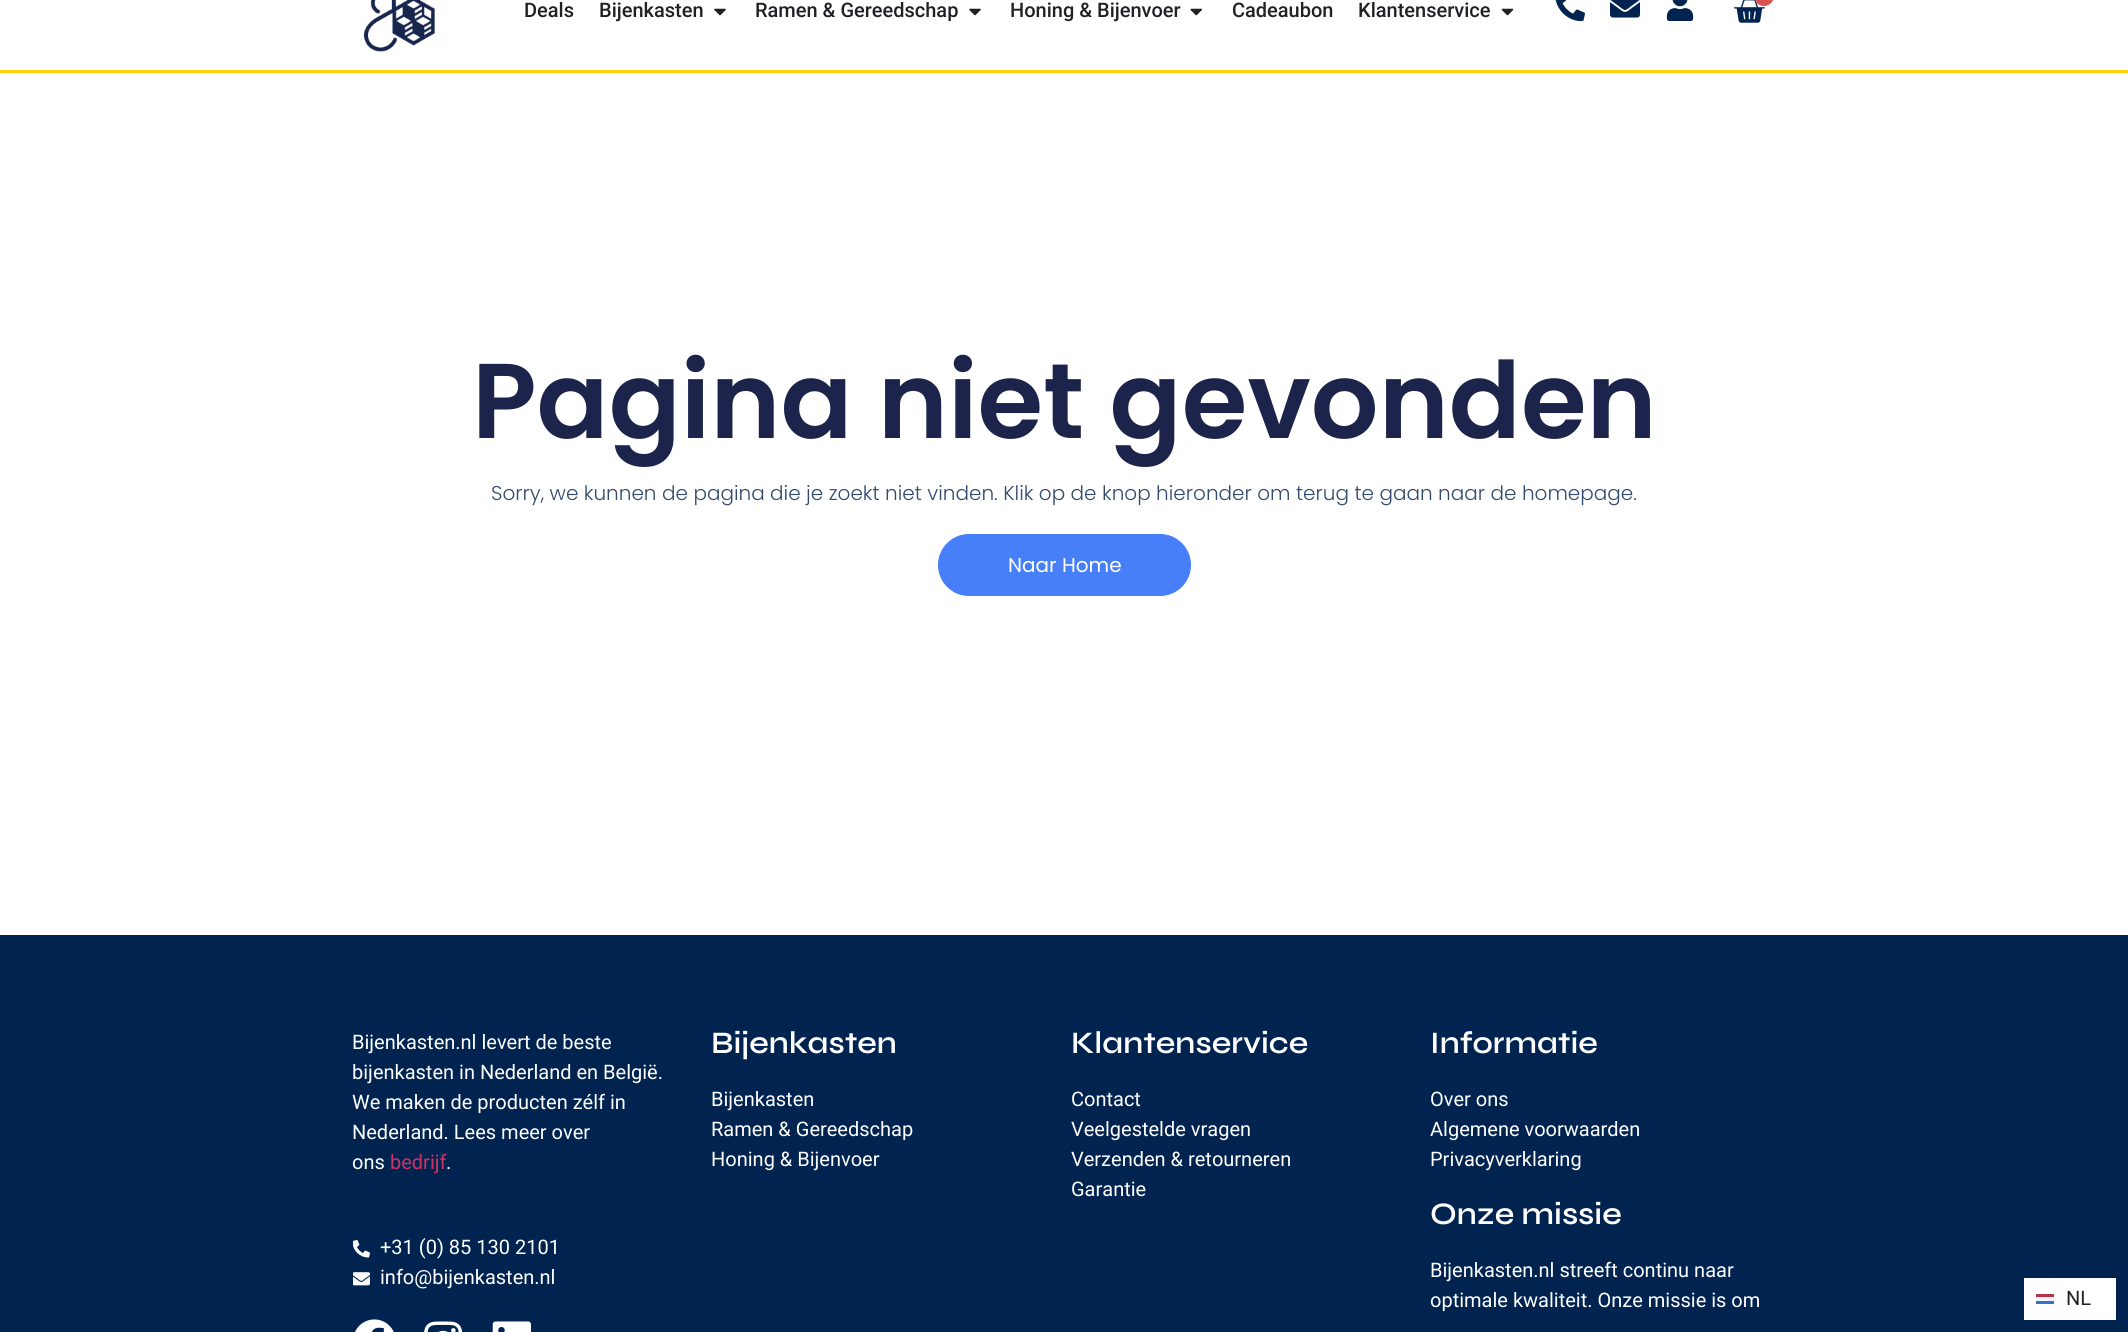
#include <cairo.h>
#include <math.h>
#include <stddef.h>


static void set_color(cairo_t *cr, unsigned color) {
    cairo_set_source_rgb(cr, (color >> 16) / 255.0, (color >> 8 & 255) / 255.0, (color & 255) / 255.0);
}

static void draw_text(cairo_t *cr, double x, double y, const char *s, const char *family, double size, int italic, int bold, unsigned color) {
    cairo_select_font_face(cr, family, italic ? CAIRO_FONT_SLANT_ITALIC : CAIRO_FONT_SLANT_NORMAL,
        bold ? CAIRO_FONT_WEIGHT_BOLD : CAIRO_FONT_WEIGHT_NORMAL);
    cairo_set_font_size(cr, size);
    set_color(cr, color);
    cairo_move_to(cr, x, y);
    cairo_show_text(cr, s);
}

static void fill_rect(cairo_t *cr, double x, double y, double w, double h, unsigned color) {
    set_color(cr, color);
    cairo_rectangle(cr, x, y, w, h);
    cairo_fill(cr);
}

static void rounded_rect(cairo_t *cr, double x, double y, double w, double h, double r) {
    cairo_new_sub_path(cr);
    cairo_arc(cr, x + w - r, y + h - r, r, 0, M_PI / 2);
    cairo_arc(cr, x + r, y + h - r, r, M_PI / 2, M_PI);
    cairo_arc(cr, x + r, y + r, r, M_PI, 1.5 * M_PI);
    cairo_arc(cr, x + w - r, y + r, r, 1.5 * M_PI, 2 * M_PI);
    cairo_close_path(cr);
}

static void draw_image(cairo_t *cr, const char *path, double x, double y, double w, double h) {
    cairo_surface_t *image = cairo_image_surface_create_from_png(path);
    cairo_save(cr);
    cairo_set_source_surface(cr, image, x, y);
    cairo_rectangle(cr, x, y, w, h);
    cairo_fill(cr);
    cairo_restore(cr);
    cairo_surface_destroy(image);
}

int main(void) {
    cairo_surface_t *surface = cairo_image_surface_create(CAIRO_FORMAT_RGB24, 2128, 1332);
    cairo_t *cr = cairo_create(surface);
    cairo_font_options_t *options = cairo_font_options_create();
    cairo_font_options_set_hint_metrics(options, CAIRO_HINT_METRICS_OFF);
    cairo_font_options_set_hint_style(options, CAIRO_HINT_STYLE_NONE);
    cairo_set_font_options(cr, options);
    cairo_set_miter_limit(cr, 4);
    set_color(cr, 0xFFFFFF);
    cairo_paint(cr);
    fill_rect(cr, 0, 70, 2128, 3, 0xFFD20C);
    draw_image(cr, "assets/img1.png", 363, 0, 73, 52);
    draw_text(cr, 524, 17, "Deals", "Roboto Medium", 20, 0, 0, 0x1F2124);
    draw_text(cr, 599, 17, "Bijenkasten", "Roboto Medium", 20, 0, 0, 0x1F2124);
    draw_image(cr, "assets/img2.png", 714, 8, 12, 8);
    draw_text(cr, 755, 17, "Ramen & Gereedschap", "Roboto Medium", 20, 0, 0, 0x1F2124);
    draw_image(cr, "assets/img2.png", 969, 8, 12, 8);
    draw_text(cr, 1010, 17, "Honing & Bijenvoer", "Roboto Medium", 20, 0, 0, 0x1F2124);
    draw_image(cr, "assets/img3.png", 1190, 8, 12, 8);
    draw_text(cr, 1232, 17, "Cadeaubon", "Roboto Medium", 20, 0, 0, 0x1F2124);
    draw_text(cr, 1358, 17, "Klantenservice", "Roboto Medium", 20, 0, 0, 0x1F2124);
    draw_image(cr, "assets/img4.png", 1501, 8, 13, 8);
    draw_image(cr, "assets/img5.png", 1555, 0, 30, 21);
    draw_image(cr, "assets/img6.png", 1610, 0, 30, 18);
    draw_image(cr, "assets/img7.png", 1666, 0, 28, 21);
    draw_image(cr, "assets/img8.png", 1733, 0, 32, 23);
    set_color(cr, 0xD9534F);
    rounded_rect(cr, 1754, -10, 20, 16, 10);
    cairo_fill(cr);
    draw_text(cr, 472, 438, "Pagina niet gevonden", "Poppins SemiBold", 106.25, 0, 0, 0x1C244B);
    draw_text(cr, 491, 500, "Sorry, we kunnen de pagina die je zoekt niet vinden. Klik op de knop hieronder om terug te gaan naar de homepage.", "Poppins Light", 20, 0, 0, 0x324A6D);
    set_color(cr, 0x467FF7);
    rounded_rect(cr, 938.5, 534.5, 252, 61, 30.5);
    cairo_fill_preserve(cr);
    cairo_set_line_width(cr, 1);
    cairo_stroke(cr);
    draw_text(cr, 1008, 572, "Naar Home", "Poppins", 20, 0, 0, 0xFFFFFF);
    fill_rect(cr, 0, 935, 2128, 397, 0x002350);
    draw_text(cr, 352, 1049, "Bijenkasten.nl levert de beste", "Roboto", 20, 0, 0, 0xFFFFFF);
    draw_text(cr, 352, 1079, "bijenkasten in Nederland en België.", "Roboto", 20, 0, 0, 0xFFFFFF);
    draw_text(cr, 352, 1109, "We maken de producten zélf in", "Roboto", 20, 0, 0, 0xFFFFFF);
    draw_text(cr, 352, 1139, "Nederland. Lees meer over", "Roboto", 20, 0, 0, 0xFFFFFF);
    draw_text(cr, 352, 1169, "ons", "Roboto", 20, 0, 0, 0xFFFFFF);
    draw_text(cr, 390, 1169, "bedrijf", "Roboto", 20, 0, 0, 0xCC3366);
    draw_text(cr, 446, 1169, ".", "Roboto", 20, 0, 0, 0xFFFFFF);
    draw_image(cr, "assets/img9.png", 353, 1240, 17, 18);
    draw_text(cr, 380, 1254, "+31 (0) 85 130 2101", "Roboto", 20, 0, 0, 0xFFFFFF);
    draw_image(cr, "assets/img10.png", 353, 1272, 17, 14);
    draw_text(cr, 380, 1284, "info@bijenkasten.nl", "Roboto", 20, 0, 0, 0xFFFFFF);
    draw_image(cr, "assets/img11.png", 355, 1319, 39, 13);
    draw_image(cr, "assets/img12.png", 424, 1321, 39, 11);
    draw_image(cr, "assets/img13.png", 492, 1321, 39, 11);
    draw_text(cr, 711, 1053, "Bijenkasten", "Syne SemiBold", 31.25, 0, 0, 0xFFFFFF);
    draw_text(cr, 711, 1106, "Bijenkasten", "Roboto", 20, 0, 0, 0xFFFFFF);
    draw_text(cr, 711, 1136, "Ramen & Gereedschap", "Roboto", 20, 0, 0, 0xFFFFFF);
    draw_text(cr, 711, 1166, "Honing & Bijenvoer", "Roboto", 20, 0, 0, 0xFFFFFF);
    draw_text(cr, 1071, 1053, "Klantenservice", "Syne SemiBold", 31.25, 0, 0, 0xFFFFFF);
    draw_text(cr, 1071, 1106, "Contact", "Roboto", 20, 0, 0, 0xFFFFFF);
    draw_text(cr, 1071, 1136, "Veelgestelde vragen", "Roboto", 20, 0, 0, 0xFFFFFF);
    draw_text(cr, 1071, 1166, "Verzenden & retourneren", "Roboto", 20, 0, 0, 0xFFFFFF);
    draw_text(cr, 1071, 1196, "Garantie", "Roboto", 20, 0, 0, 0xFFFFFF);
    draw_text(cr, 1430, 1053, "Informatie", "Syne SemiBold", 31.25, 0, 0, 0xFFFFFF);
    draw_text(cr, 1430, 1106, "Over ons", "Roboto", 20, 0, 0, 0xFFFFFF);
    draw_text(cr, 1430, 1136, "Algemene voorwaarden", "Roboto", 20, 0, 0, 0xFFFFFF);
    draw_text(cr, 1430, 1166, "Privacyverklaring", "Roboto", 20, 0, 0, 0xFFFFFF);
    draw_text(cr, 1430, 1224, "Onze missie", "Syne SemiBold", 31.25, 0, 0, 0xFFFFFF);
    draw_text(cr, 1430, 1277, "Bijenkasten.nl streeft continu naar", "Roboto", 20, 0, 0, 0xFFFFFF);
    draw_text(cr, 1430, 1307, "optimale kwaliteit. Onze missie is om", "Roboto", 20, 0, 0, 0xFFFFFF);
    fill_rect(cr, 2024, 1278, 92, 42, 0xFFFFFF);
    fill_rect(cr, 2036, 1297, 18, 4, 0xF3F3F3);
    fill_rect(cr, 2036, 1294, 18, 3, 0xB5334A);
    fill_rect(cr, 2036, 1301, 18, 3, 0x3375C3);
    draw_text(cr, 2066, 1305, "NL", "Roboto", 20, 0, 0, 0x1F2124);
    cairo_surface_write_to_png(surface, "output.png");
    cairo_font_options_destroy(options);
    cairo_destroy(cr);
    cairo_surface_destroy(surface);
    return 0;
}
